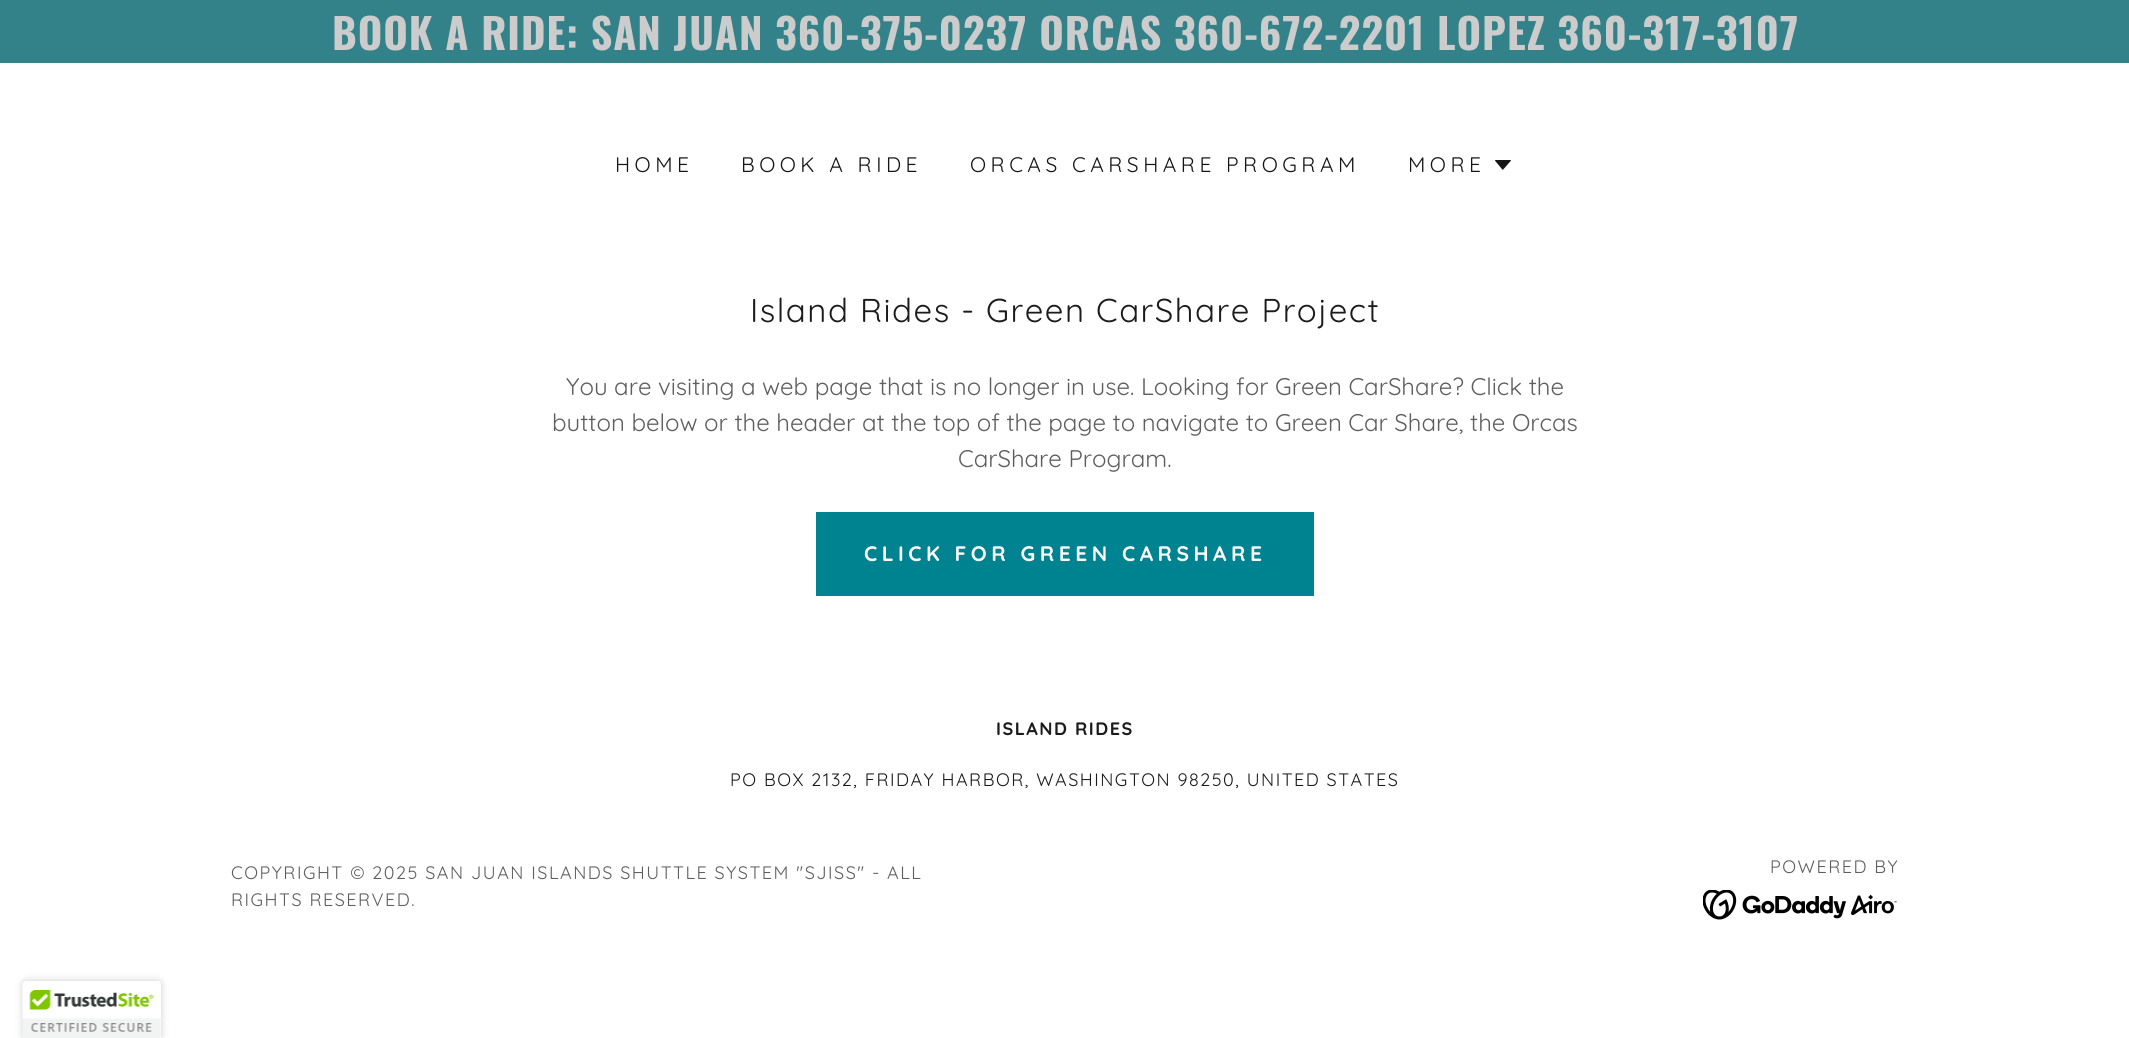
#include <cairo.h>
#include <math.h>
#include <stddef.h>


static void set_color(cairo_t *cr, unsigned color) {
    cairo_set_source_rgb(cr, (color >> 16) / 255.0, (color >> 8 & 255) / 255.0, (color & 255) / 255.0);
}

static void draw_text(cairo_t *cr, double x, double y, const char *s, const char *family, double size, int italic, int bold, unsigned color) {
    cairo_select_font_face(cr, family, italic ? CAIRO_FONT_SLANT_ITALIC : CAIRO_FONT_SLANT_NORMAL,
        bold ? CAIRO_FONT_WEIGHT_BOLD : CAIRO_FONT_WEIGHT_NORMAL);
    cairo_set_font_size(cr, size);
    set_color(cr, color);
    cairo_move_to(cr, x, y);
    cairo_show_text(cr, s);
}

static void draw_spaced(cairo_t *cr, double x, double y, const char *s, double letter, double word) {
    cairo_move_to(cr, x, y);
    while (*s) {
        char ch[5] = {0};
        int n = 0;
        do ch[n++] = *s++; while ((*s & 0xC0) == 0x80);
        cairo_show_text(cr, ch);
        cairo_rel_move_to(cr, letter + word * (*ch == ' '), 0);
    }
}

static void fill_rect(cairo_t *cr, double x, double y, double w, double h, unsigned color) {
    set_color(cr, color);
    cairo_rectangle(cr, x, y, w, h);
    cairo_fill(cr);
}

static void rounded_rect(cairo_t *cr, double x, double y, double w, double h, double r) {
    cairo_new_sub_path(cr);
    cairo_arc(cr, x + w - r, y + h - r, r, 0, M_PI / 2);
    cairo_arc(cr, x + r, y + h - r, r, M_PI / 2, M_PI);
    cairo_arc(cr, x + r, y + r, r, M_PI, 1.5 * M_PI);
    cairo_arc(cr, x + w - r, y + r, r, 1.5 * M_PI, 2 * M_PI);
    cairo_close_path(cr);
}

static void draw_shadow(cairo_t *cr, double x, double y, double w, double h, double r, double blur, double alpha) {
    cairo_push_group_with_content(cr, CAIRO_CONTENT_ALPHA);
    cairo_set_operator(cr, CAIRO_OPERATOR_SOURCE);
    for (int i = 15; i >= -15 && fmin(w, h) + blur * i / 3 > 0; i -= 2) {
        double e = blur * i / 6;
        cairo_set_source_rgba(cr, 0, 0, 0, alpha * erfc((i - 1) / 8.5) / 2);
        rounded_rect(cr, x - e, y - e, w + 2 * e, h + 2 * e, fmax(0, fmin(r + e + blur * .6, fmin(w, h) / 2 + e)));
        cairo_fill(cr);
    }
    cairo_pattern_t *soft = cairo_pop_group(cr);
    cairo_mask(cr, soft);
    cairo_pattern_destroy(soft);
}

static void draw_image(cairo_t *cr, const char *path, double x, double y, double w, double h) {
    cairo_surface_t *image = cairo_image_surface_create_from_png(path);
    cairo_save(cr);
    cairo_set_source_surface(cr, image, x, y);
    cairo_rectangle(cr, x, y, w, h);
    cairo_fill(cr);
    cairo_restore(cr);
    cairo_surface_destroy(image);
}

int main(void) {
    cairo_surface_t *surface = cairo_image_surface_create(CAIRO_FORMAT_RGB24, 2129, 1038);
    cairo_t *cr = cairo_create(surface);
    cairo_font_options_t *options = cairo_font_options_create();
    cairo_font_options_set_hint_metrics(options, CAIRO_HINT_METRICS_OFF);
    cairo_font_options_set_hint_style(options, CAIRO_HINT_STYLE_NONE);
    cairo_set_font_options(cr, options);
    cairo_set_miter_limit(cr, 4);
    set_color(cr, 0xFFFFFF);
    cairo_paint(cr);
    fill_rect(cr, 0, 0, 2129, 63, 0x338289);
    cairo_select_font_face(cr, "Oswald", CAIRO_FONT_SLANT_NORMAL, CAIRO_FONT_WEIGHT_BOLD);
    cairo_set_font_size(cr, 42);
    set_color(cr, 0xCCCCCC);
    draw_spaced(cr, 332, 50, "BOOK A RIDE: SAN JUAN 360-375-0237 ORCAS 360-672-2201 LOPEZ 360-317-3107", 0.97, 0);
    cairo_select_font_face(cr, "Quicksand", CAIRO_FONT_SLANT_NORMAL, CAIRO_FONT_WEIGHT_NORMAL);
    cairo_set_font_size(cr, 21);
    set_color(cr, 0x151515);
    draw_spaced(cr, 615, 172, "HOME", 4.5, 0);
    draw_spaced(cr, 741, 172, "BOOK A RIDE", 4.5, 0);
    draw_spaced(cr, 970, 172, "ORCAS CARSHARE PROGRAM", 4.5, 0);
    draw_spaced(cr, 1408, 172, "MORE", 4.5, 0);
    draw_image(cr, "assets/img1.png", 1495, 160, 16, 10);
    cairo_set_font_size(cr, 33);
    set_color(cr, 0x1B1B1B);
    draw_spaced(cr, 750, 322, "Island Rides - Green CarShare Project", 1.5, 0);
    draw_text(cr, 566, 395, "You are visiting a web page that is no longer in use. Looking for Green CarShare? Click the", "Quicksand", 24, 0, 0, 0x5E5E5E);
    draw_text(cr, 552, 431, "button below or the header at the top of the page to navigate to Green Car Share, the Orcas", "Quicksand", 24, 0, 0, 0x5E5E5E);
    draw_text(cr, 958, 467, "CarShare Program.", "Quicksand", 24, 0, 0, 0x5E5E5E);
    fill_rect(cr, 816, 512, 498, 84, 0x008390);
    cairo_select_font_face(cr, "Quicksand", CAIRO_FONT_SLANT_NORMAL, CAIRO_FONT_WEIGHT_BOLD);
    cairo_set_font_size(cr, 21);
    set_color(cr, 0xFFFFFF);
    draw_spaced(cr, 864, 561, "CLICK FOR GREEN CARSHARE", 4.5, 0);
    cairo_set_font_size(cr, 18);
    set_color(cr, 0x1B1B1B);
    draw_spaced(cr, 996, 735, "ISLAND RIDES", 1.5, 0);
    cairo_select_font_face(cr, "Quicksand", CAIRO_FONT_SLANT_NORMAL, CAIRO_FONT_WEIGHT_NORMAL);
    draw_spaced(cr, 730, 786, "PO BOX 2132, FRIDAY HARBOR, WASHINGTON 98250, UNITED STATES", 1.5, 0);
    set_color(cr, 0x5E5E5E);
    draw_spaced(cr, 231, 879, "COPYRIGHT © 2025 SAN JUAN ISLANDS SHUTTLE SYSTEM \"SJISS\" - ALL", 1.5, 0);
    draw_spaced(cr, 231, 906, "RIGHTS RESERVED.", 1.5, 0);
    draw_spaced(cr, 1770, 873, "POWERED BY", 1.5, 0);
    draw_image(cr, "assets/img2.png", 1703, 890, 194, 30);
    set_color(cr, 0x000000);
    draw_shadow(cr, 23, 981, 138, 57, 3, 4, 0.2);
    set_color(cr, 0xFFFFFF);
    cairo_new_path(cr);
    cairo_move_to(cr, 26, 981);
    cairo_line_to(cr, 158, 981);
    cairo_curve_to(cr, 159.5, 981, 161, 982.5, 161, 984);
    cairo_line_to(cr, 161, 1038);
    cairo_line_to(cr, 23, 1038);
    cairo_line_to(cr, 23, 984);
    cairo_curve_to(cr, 23, 982.5, 24.5, 981, 26, 981);
    cairo_close_path(cr);
    cairo_fill(cr);
    draw_image(cr, "assets/img3.png", 22, 983, 139, 55);
    cairo_surface_write_to_png(surface, "output.png");
    cairo_font_options_destroy(options);
    cairo_destroy(cr);
    cairo_surface_destroy(surface);
    return 0;
}
